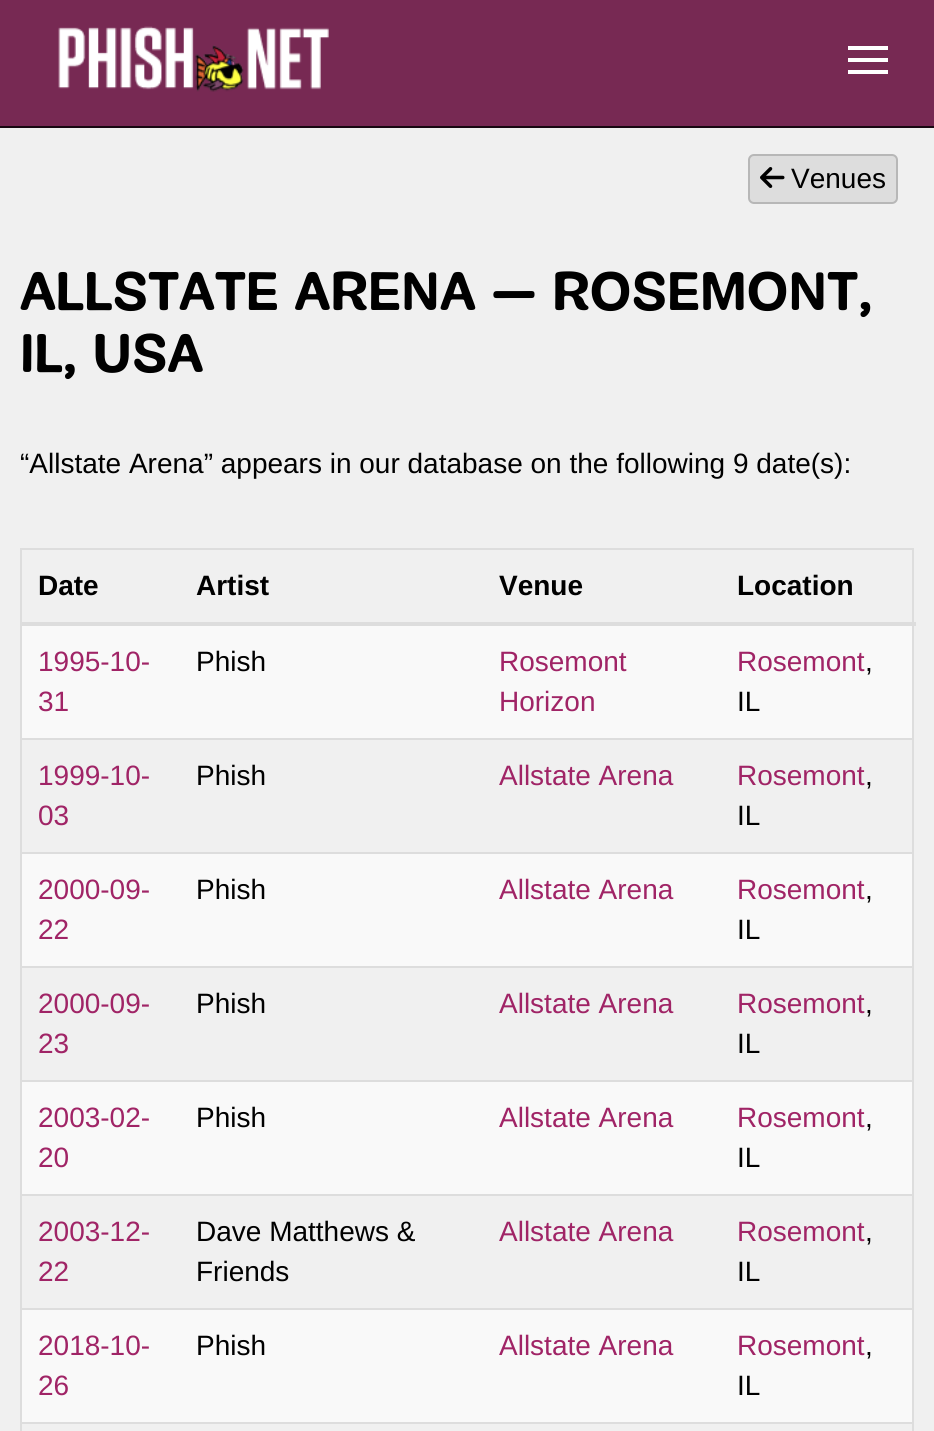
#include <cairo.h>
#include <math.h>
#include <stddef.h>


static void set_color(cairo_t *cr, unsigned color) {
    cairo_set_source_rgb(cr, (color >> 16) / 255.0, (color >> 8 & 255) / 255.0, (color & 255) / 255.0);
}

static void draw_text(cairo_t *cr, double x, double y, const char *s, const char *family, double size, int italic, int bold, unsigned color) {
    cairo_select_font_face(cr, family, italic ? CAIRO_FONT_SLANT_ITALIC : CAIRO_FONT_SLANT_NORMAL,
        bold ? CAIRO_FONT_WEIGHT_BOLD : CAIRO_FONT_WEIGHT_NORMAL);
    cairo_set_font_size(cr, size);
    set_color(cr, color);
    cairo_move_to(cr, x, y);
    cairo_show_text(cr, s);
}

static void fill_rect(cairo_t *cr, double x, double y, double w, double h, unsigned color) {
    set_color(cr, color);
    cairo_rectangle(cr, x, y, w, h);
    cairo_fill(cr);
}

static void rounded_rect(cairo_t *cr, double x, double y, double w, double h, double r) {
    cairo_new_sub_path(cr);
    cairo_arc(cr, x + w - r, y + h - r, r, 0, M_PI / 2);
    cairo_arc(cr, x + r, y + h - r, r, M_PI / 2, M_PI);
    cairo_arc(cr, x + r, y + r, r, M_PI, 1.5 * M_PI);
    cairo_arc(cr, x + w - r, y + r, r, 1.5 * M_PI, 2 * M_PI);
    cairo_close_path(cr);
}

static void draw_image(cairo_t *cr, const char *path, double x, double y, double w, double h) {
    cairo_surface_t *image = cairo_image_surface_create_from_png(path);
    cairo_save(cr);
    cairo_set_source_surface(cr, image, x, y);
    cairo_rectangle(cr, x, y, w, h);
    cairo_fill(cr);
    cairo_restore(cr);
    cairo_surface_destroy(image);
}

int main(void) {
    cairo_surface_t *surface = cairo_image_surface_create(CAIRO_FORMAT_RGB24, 934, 1431);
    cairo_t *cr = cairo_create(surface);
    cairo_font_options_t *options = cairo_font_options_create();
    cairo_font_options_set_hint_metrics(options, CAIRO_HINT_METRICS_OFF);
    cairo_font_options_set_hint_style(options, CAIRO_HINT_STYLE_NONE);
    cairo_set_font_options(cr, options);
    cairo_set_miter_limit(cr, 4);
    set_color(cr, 0xF0F0F0);
    cairo_paint(cr);
    set_color(cr, 0x772953);
    cairo_rectangle(cr, -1, -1, 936, 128);
    cairo_fill_preserve(cr);
    set_color(cr, 0x180811);
    cairo_stroke(cr);
    draw_image(cr, "assets/img1.png", 58, 26, 271, 66);
    fill_rect(cr, 848, 46, 40, 4, 0xFFFFFF);
    fill_rect(cr, 848, 58, 40, 4, 0xFFFFFF);
    fill_rect(cr, 848, 70, 40, 4, 0xFFFFFF);
    set_color(cr, 0xDDDDDD);
    rounded_rect(cr, 749, 155, 148, 48, 5);
    cairo_fill_preserve(cr);
    set_color(cr, 0xB7B7B7);
    cairo_stroke(cr);
    draw_image(cr, "assets/img2.png", 760, 167, 25, 21);
    draw_text(cr, 791, 188, "Venues", "Liberation Sans", 28, 0, 0, 0x000000);
    draw_text(cr, 20, 310, "ALLSTATE ARENA — ROSEMONT,", "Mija", 56, 0, 1, 0x000000);
    draw_text(cr, 20, 372, "IL, USA", "Mija", 56, 0, 1, 0x000000);
    draw_text(cr, 20, 473, "“Allstate Arena” appears in our database on the following 9 date(s):", "Liberation Sans", 28, 0, 0, 0x000000);
    fill_rect(cr, 20, 548, 894, 2, 0xDDDDDD);
    fill_rect(cr, 912, 548, 2, 883, 0xDDDDDD);
    fill_rect(cr, 20, 548, 2, 883, 0xDDDDDD);
    draw_text(cr, 38, 595, "Date", "Liberation Sans", 28, 0, 1, 0x000000);
    draw_text(cr, 196, 595, "Artist", "Liberation Sans", 28, 0, 1, 0x000000);
    draw_text(cr, 499, 595, "Venue", "Liberation Sans", 28, 0, 1, 0x000000);
    fill_rect(cr, 20, 622, 896, 4, 0xDDDDDD);
    draw_text(cr, 737, 595, "Location", "Liberation Sans", 28, 0, 1, 0x000000);
    fill_rect(cr, 22, 626, 890, 112, 0xF9F9F9);
    draw_text(cr, 38, 671, "1995-10-", "Liberation Sans", 28, 0, 0, 0xA02466);
    draw_text(cr, 38, 711, "31", "Liberation Sans", 28, 0, 0, 0xA02466);
    draw_text(cr, 196, 671, "Phish", "Liberation Sans", 28, 0, 0, 0x000000);
    draw_text(cr, 499, 671, "Rosemont", "Liberation Sans", 28, 0, 0, 0xA02466);
    draw_text(cr, 499, 711, "Horizon", "Liberation Sans", 28, 0, 0, 0xA02466);
    draw_text(cr, 737, 671, "Rosemont", "Liberation Sans", 28, 0, 0, 0xA02466);
    draw_text(cr, 865, 671, ",", "Liberation Sans", 28, 0, 0, 0x000000);
    draw_text(cr, 737, 711, "IL", "Liberation Sans", 28, 0, 0, 0x000000);
    draw_text(cr, 38, 785, "1999-10-", "Liberation Sans", 28, 0, 0, 0xA02466);
    draw_text(cr, 38, 825, "03", "Liberation Sans", 28, 0, 0, 0xA02466);
    draw_text(cr, 196, 785, "Phish", "Liberation Sans", 28, 0, 0, 0x000000);
    draw_text(cr, 499, 785, "Allstate Arena", "Liberation Sans", 28, 0, 0, 0xA02466);
    fill_rect(cr, 20, 738, 894, 2, 0xDDDDDD);
    draw_text(cr, 737, 785, "Rosemont", "Liberation Sans", 28, 0, 0, 0xA02466);
    draw_text(cr, 865, 785, ",", "Liberation Sans", 28, 0, 0, 0x000000);
    draw_text(cr, 737, 825, "IL", "Liberation Sans", 28, 0, 0, 0x000000);
    fill_rect(cr, 22, 854, 890, 112, 0xF9F9F9);
    draw_text(cr, 38, 899, "2000-09-", "Liberation Sans", 28, 0, 0, 0xA02466);
    draw_text(cr, 38, 939, "22", "Liberation Sans", 28, 0, 0, 0xA02466);
    draw_text(cr, 196, 899, "Phish", "Liberation Sans", 28, 0, 0, 0x000000);
    draw_text(cr, 499, 899, "Allstate Arena", "Liberation Sans", 28, 0, 0, 0xA02466);
    fill_rect(cr, 20, 852, 894, 2, 0xDDDDDD);
    draw_text(cr, 737, 899, "Rosemont", "Liberation Sans", 28, 0, 0, 0xA02466);
    draw_text(cr, 865, 899, ",", "Liberation Sans", 28, 0, 0, 0x000000);
    draw_text(cr, 737, 939, "IL", "Liberation Sans", 28, 0, 0, 0x000000);
    draw_text(cr, 38, 1013, "2000-09-", "Liberation Sans", 28, 0, 0, 0xA02466);
    draw_text(cr, 38, 1053, "23", "Liberation Sans", 28, 0, 0, 0xA02466);
    draw_text(cr, 196, 1013, "Phish", "Liberation Sans", 28, 0, 0, 0x000000);
    draw_text(cr, 499, 1013, "Allstate Arena", "Liberation Sans", 28, 0, 0, 0xA02466);
    fill_rect(cr, 20, 966, 894, 2, 0xDDDDDD);
    draw_text(cr, 737, 1013, "Rosemont", "Liberation Sans", 28, 0, 0, 0xA02466);
    draw_text(cr, 865, 1013, ",", "Liberation Sans", 28, 0, 0, 0x000000);
    draw_text(cr, 737, 1053, "IL", "Liberation Sans", 28, 0, 0, 0x000000);
    fill_rect(cr, 22, 1082, 890, 112, 0xF9F9F9);
    draw_text(cr, 38, 1127, "2003-02-", "Liberation Sans", 28, 0, 0, 0xA02466);
    draw_text(cr, 38, 1167, "20", "Liberation Sans", 28, 0, 0, 0xA02466);
    draw_text(cr, 196, 1127, "Phish", "Liberation Sans", 28, 0, 0, 0x000000);
    draw_text(cr, 499, 1127, "Allstate Arena", "Liberation Sans", 28, 0, 0, 0xA02466);
    fill_rect(cr, 20, 1080, 894, 2, 0xDDDDDD);
    draw_text(cr, 737, 1127, "Rosemont", "Liberation Sans", 28, 0, 0, 0xA02466);
    draw_text(cr, 865, 1127, ",", "Liberation Sans", 28, 0, 0, 0x000000);
    draw_text(cr, 737, 1167, "IL", "Liberation Sans", 28, 0, 0, 0x000000);
    draw_text(cr, 38, 1241, "2003-12-", "Liberation Sans", 28, 0, 0, 0xA02466);
    draw_text(cr, 38, 1281, "22", "Liberation Sans", 28, 0, 0, 0xA02466);
    draw_text(cr, 196, 1241, "Dave Matthews &", "Liberation Sans", 28, 0, 0, 0x000000);
    draw_text(cr, 196, 1281, "Friends", "Liberation Sans", 28, 0, 0, 0x000000);
    draw_text(cr, 499, 1241, "Allstate Arena", "Liberation Sans", 28, 0, 0, 0xA02466);
    fill_rect(cr, 20, 1194, 894, 2, 0xDDDDDD);
    draw_text(cr, 737, 1241, "Rosemont", "Liberation Sans", 28, 0, 0, 0xA02466);
    draw_text(cr, 865, 1241, ",", "Liberation Sans", 28, 0, 0, 0x000000);
    draw_text(cr, 737, 1281, "IL", "Liberation Sans", 28, 0, 0, 0x000000);
    fill_rect(cr, 22, 1310, 890, 112, 0xF9F9F9);
    draw_text(cr, 38, 1355, "2018-10-", "Liberation Sans", 28, 0, 0, 0xA02466);
    draw_text(cr, 38, 1395, "26", "Liberation Sans", 28, 0, 0, 0xA02466);
    draw_text(cr, 196, 1355, "Phish", "Liberation Sans", 28, 0, 0, 0x000000);
    draw_text(cr, 499, 1355, "Allstate Arena", "Liberation Sans", 28, 0, 0, 0xA02466);
    fill_rect(cr, 20, 1308, 894, 2, 0xDDDDDD);
    draw_text(cr, 737, 1355, "Rosemont", "Liberation Sans", 28, 0, 0, 0xA02466);
    draw_text(cr, 865, 1355, ",", "Liberation Sans", 28, 0, 0, 0x000000);
    draw_text(cr, 737, 1395, "IL", "Liberation Sans", 28, 0, 0, 0x000000);
    fill_rect(cr, 20, 1422, 894, 2, 0xDDDDDD);
    cairo_surface_write_to_png(surface, "output.png");
    cairo_font_options_destroy(options);
    cairo_destroy(cr);
    cairo_surface_destroy(surface);
    return 0;
}
